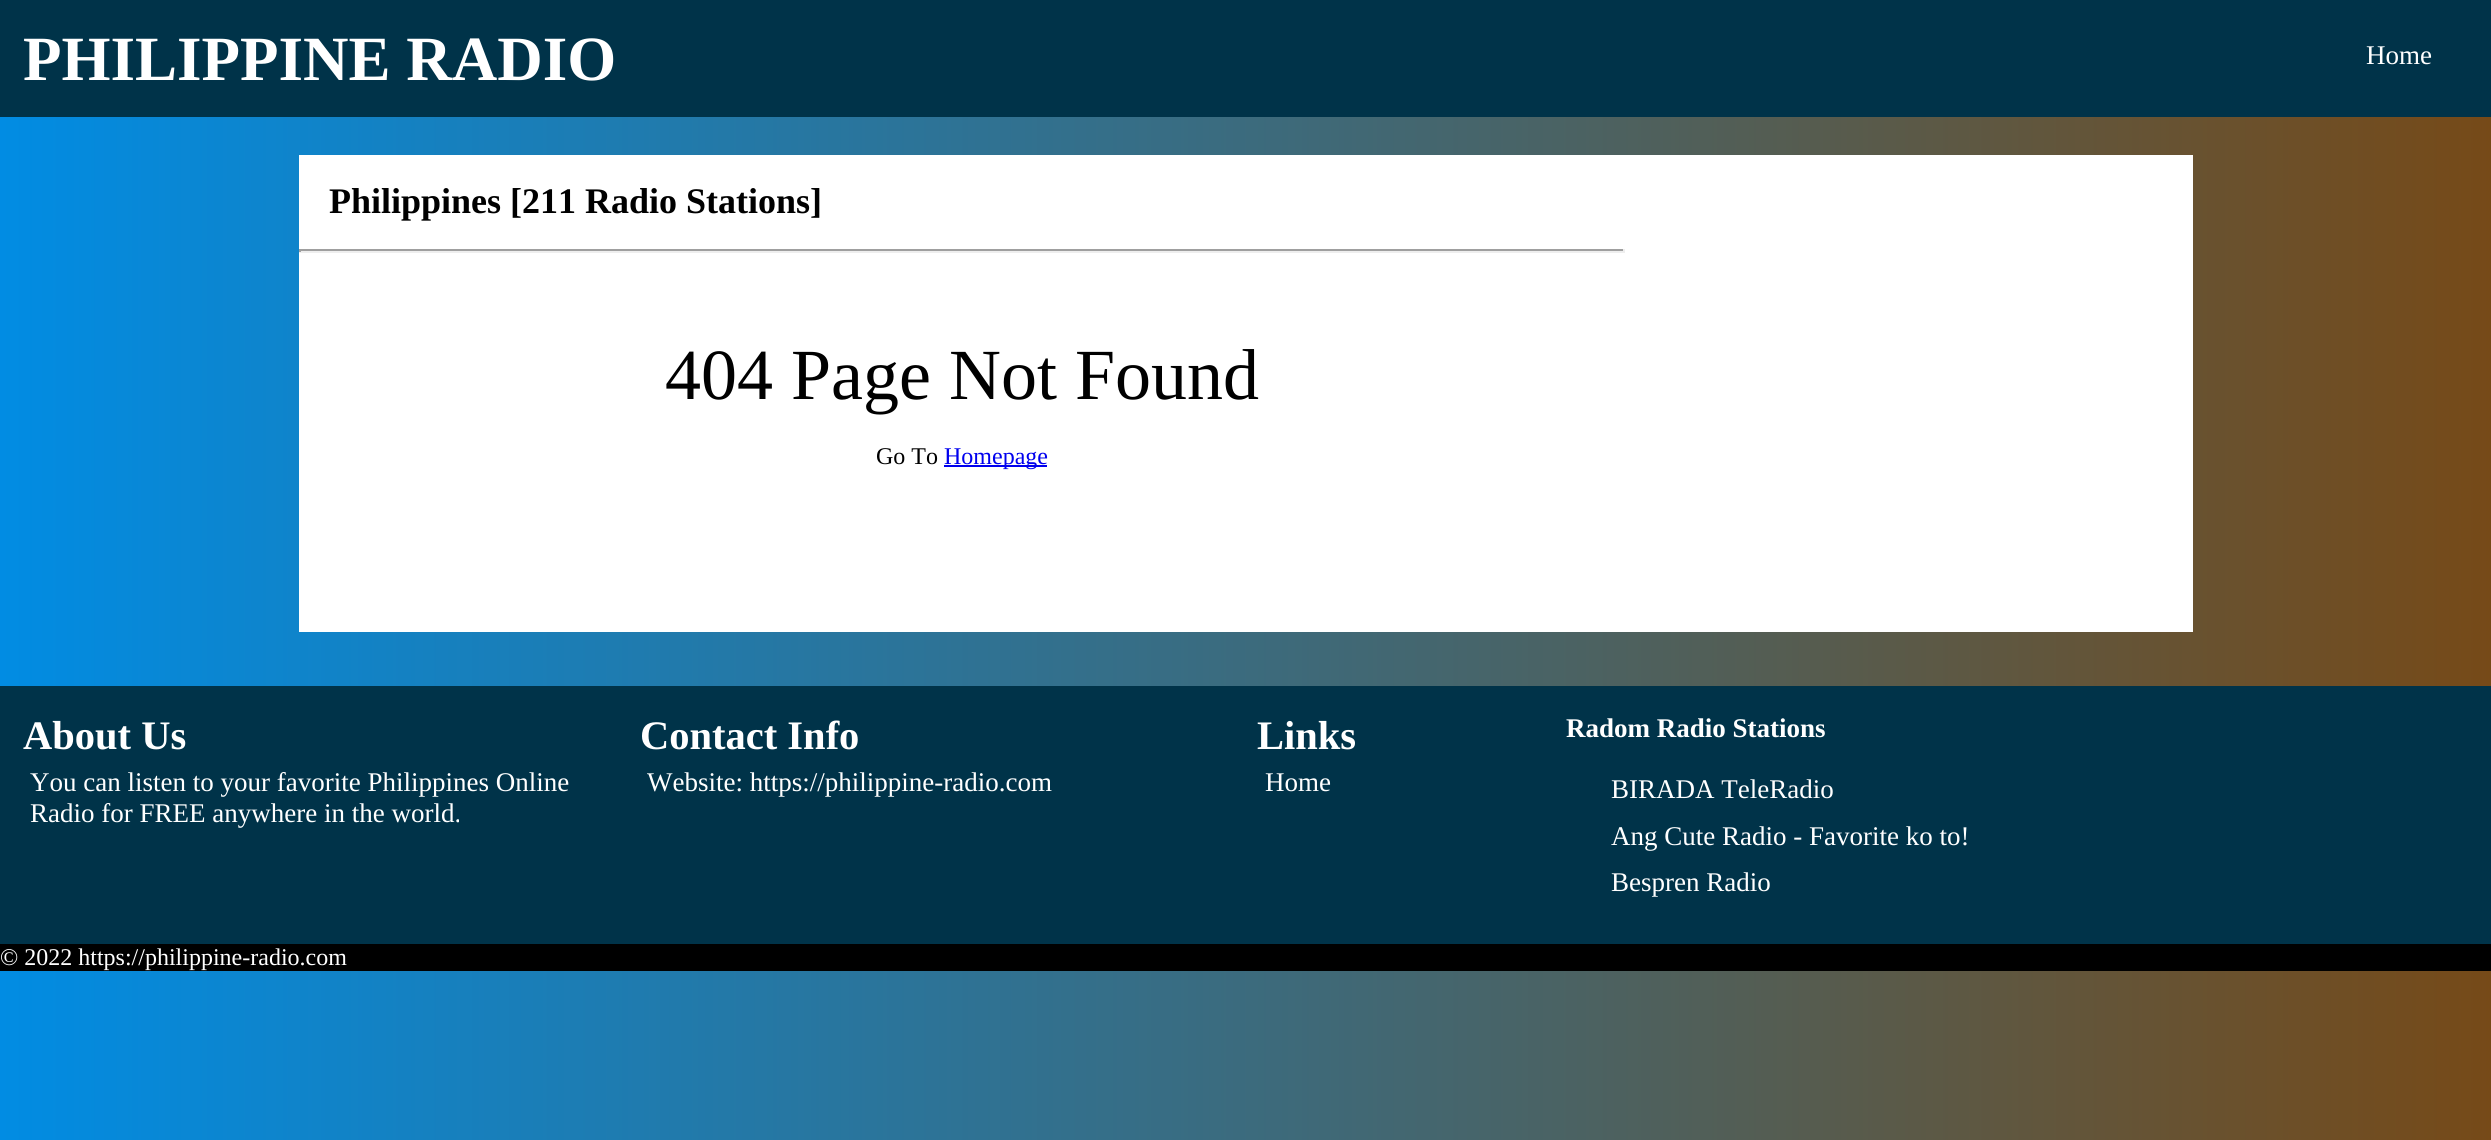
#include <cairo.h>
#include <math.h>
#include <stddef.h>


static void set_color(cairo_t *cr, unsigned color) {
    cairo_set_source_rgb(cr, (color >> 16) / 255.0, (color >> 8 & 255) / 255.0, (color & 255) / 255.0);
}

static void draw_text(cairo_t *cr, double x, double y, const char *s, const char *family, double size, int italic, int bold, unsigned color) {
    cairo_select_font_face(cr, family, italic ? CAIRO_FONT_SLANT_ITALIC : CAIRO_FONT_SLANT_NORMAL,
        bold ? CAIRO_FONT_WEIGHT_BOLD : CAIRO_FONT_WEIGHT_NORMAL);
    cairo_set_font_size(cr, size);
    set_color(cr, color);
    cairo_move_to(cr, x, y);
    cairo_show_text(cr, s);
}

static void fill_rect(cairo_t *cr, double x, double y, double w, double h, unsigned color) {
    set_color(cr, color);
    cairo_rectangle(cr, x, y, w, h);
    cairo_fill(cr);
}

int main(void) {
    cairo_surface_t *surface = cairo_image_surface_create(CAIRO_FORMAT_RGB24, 2491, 1140);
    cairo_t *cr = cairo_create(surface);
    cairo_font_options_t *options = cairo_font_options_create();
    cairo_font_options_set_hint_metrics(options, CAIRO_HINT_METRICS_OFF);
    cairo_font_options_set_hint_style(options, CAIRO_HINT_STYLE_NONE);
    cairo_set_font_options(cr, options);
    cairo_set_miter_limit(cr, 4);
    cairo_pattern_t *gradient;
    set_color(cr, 0xFFFFFF);
    cairo_paint(cr);
    gradient = cairo_pattern_create_linear(0, 570, 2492, 570);
    cairo_pattern_add_color_stop_rgba(gradient, 0, 0.004, 0.549, 0.89, 1);
    cairo_pattern_add_color_stop_rgba(gradient, 1, 0.463, 0.29, 0.094, 1);
    cairo_set_source(cr, gradient);
    cairo_pattern_destroy(gradient);
    cairo_rectangle(cr, 0, 117, 2491, 1023);
    cairo_fill(cr);
    fill_rect(cr, 0, 0, 2491, 117, 0x003349);
    draw_text(cr, 23, 80, "PHILIPPINE RADIO", "Liberation Serif", 63, 0, 1, 0xFFFFFF);
    draw_text(cr, 2366, 64, "Home", "Liberation Serif", 27, 0, 0, 0xFFFFFF);
    fill_rect(cr, 299, 155, 1894, 477, 0xFFFFFF);
    draw_text(cr, 329, 213, "Philippines [211 Radio Stations]", "Liberation Serif", 36, 0, 1, 0x000000);
    fill_rect(cr, 299, 249, 1326, 2, 0x9F9F9F);
    fill_rect(cr, 1623, 249, 2, 3, 0xEEEEEE);
    fill_rect(cr, 299, 251, 1326, 2, 0xEEEEEE);
    fill_rect(cr, 299, 249, 2, 3, 0x9F9F9F);
    draw_text(cr, 665, 399, "404 Page Not Found", "Liberation Serif", 72, 0, 0, 0x000000);
    draw_text(cr, 876, 464, "Go To", "Liberation Serif", 24, 0, 0, 0x000000);
    fill_rect(cr, 944, 465, 103, 2, 0x0000EE);
    draw_text(cr, 944, 464, "Homepage", "Liberation Serif", 24, 0, 0, 0x0000EE);
    fill_rect(cr, 0, 686, 2491, 258, 0x003349);
    draw_text(cr, 23, 749, "About Us", "Liberation Serif", 40.5, 0, 1, 0xFFFFFF);
    draw_text(cr, 30, 791, "You can listen to your favorite Philippines Online", "Liberation Serif", 27, 0, 0, 0xFFFFFF);
    draw_text(cr, 30, 822, "Radio for FREE anywhere in the world.", "Liberation Serif", 27, 0, 0, 0xFFFFFF);
    draw_text(cr, 640, 749, "Contact Info", "Liberation Serif", 40.5, 0, 1, 0xFFFFFF);
    draw_text(cr, 647, 791, "Website: https://philippine-radio.com", "Liberation Serif", 27, 0, 0, 0xFFFFFF);
    draw_text(cr, 1257, 749, "Links", "Liberation Serif", 40.5, 0, 1, 0xFFFFFF);
    draw_text(cr, 1265, 791, "Home", "Liberation Serif", 27, 0, 0, 0xFFFFFF);
    draw_text(cr, 1566, 737, "Radom Radio Stations", "Liberation Serif", 27, 0, 1, 0xFFFFFF);
    draw_text(cr, 1611, 798, "BIRADA TeleRadio", "Liberation Serif", 27, 0, 0, 0xFFFFFF);
    draw_text(cr, 1611, 845, "Ang Cute Radio - Favorite ko to!", "Liberation Serif", 27, 0, 0, 0xFFFFFF);
    draw_text(cr, 1611, 891, "Bespren Radio", "Liberation Serif", 27, 0, 0, 0xFFFFFF);
    fill_rect(cr, 0, 944, 2491, 27, 0x000000);
    draw_text(cr, 0, 965, "© 2022 https://philippine-radio.com", "Liberation Serif", 24, 0, 0, 0xFFFFFF);
    cairo_surface_write_to_png(surface, "output.png");
    cairo_font_options_destroy(options);
    cairo_destroy(cr);
    cairo_surface_destroy(surface);
    return 0;
}
